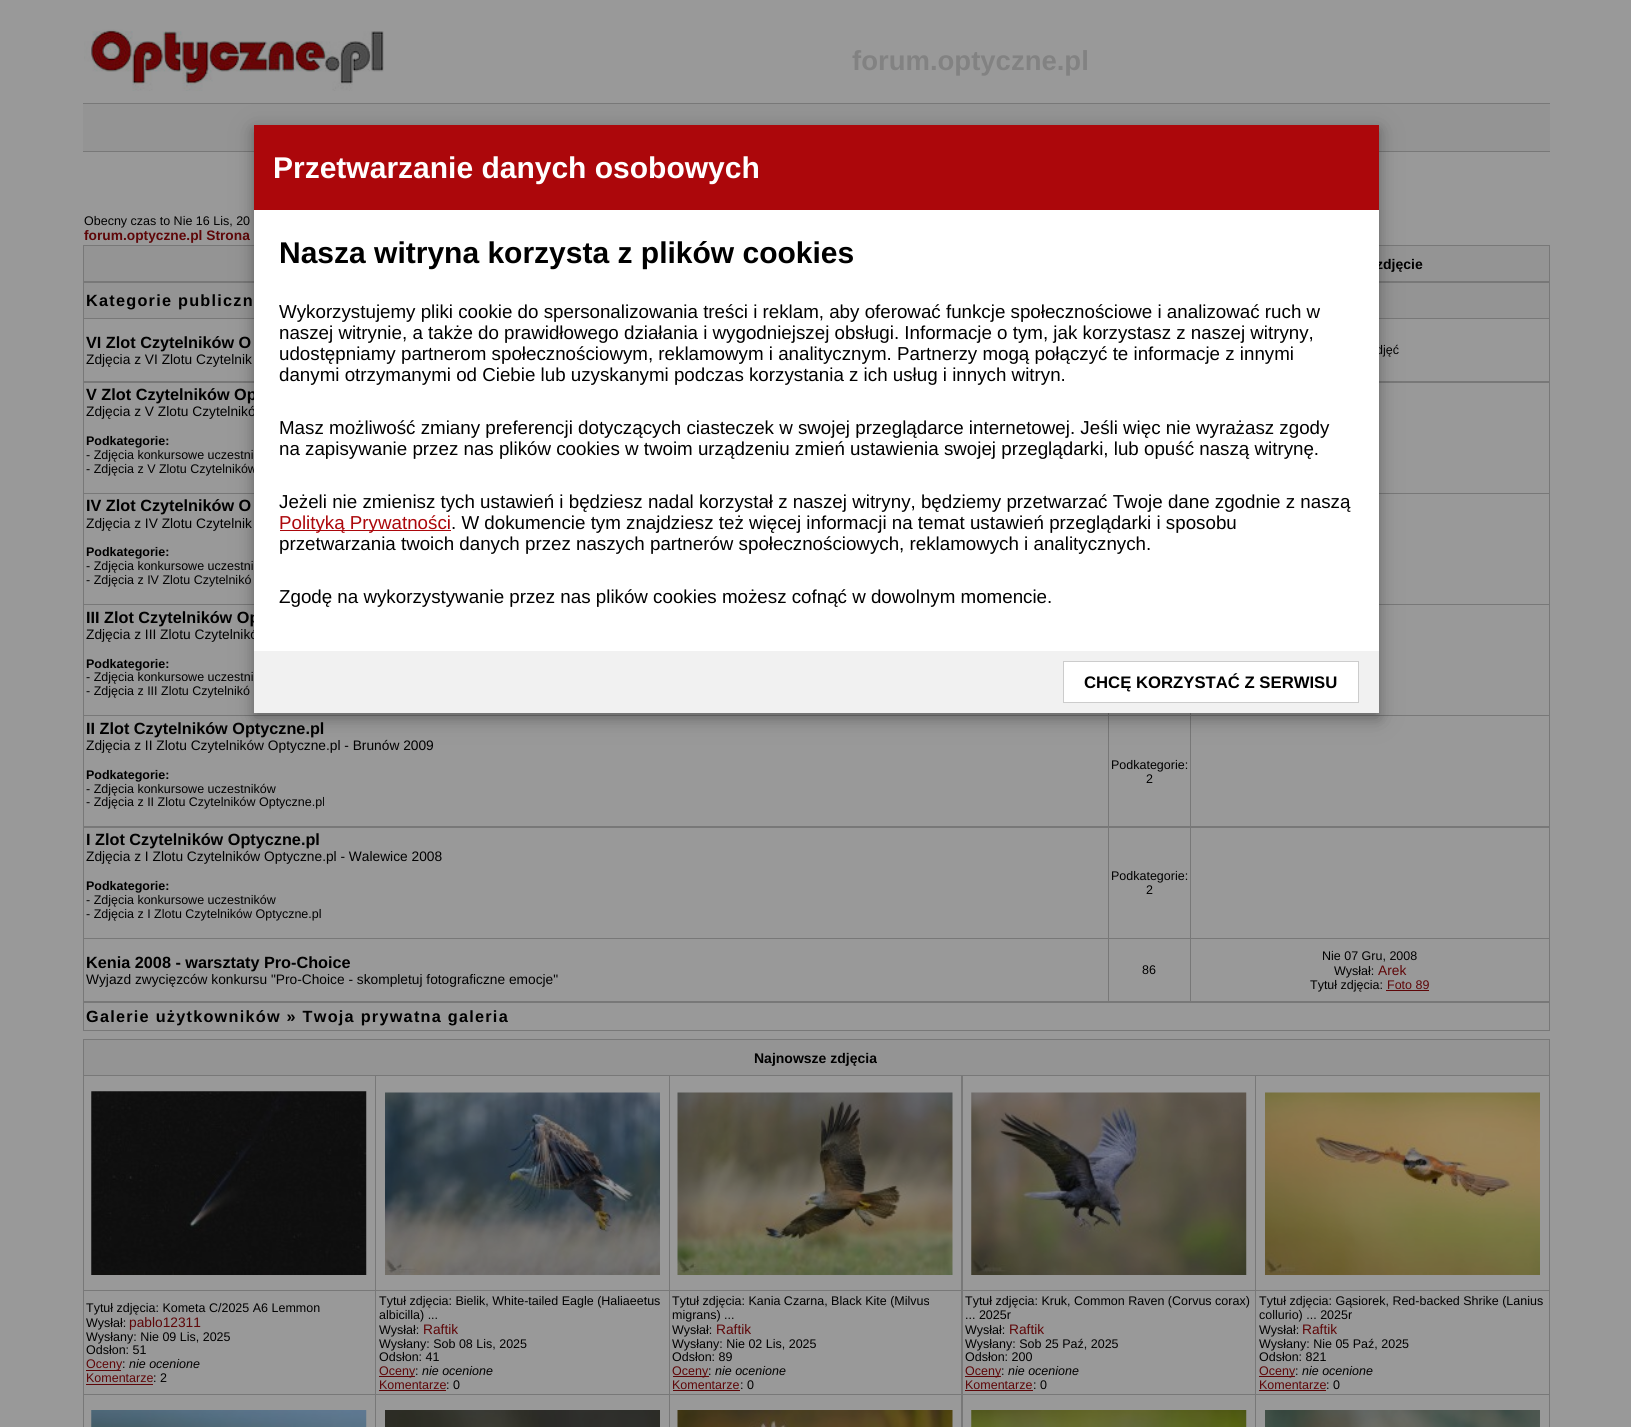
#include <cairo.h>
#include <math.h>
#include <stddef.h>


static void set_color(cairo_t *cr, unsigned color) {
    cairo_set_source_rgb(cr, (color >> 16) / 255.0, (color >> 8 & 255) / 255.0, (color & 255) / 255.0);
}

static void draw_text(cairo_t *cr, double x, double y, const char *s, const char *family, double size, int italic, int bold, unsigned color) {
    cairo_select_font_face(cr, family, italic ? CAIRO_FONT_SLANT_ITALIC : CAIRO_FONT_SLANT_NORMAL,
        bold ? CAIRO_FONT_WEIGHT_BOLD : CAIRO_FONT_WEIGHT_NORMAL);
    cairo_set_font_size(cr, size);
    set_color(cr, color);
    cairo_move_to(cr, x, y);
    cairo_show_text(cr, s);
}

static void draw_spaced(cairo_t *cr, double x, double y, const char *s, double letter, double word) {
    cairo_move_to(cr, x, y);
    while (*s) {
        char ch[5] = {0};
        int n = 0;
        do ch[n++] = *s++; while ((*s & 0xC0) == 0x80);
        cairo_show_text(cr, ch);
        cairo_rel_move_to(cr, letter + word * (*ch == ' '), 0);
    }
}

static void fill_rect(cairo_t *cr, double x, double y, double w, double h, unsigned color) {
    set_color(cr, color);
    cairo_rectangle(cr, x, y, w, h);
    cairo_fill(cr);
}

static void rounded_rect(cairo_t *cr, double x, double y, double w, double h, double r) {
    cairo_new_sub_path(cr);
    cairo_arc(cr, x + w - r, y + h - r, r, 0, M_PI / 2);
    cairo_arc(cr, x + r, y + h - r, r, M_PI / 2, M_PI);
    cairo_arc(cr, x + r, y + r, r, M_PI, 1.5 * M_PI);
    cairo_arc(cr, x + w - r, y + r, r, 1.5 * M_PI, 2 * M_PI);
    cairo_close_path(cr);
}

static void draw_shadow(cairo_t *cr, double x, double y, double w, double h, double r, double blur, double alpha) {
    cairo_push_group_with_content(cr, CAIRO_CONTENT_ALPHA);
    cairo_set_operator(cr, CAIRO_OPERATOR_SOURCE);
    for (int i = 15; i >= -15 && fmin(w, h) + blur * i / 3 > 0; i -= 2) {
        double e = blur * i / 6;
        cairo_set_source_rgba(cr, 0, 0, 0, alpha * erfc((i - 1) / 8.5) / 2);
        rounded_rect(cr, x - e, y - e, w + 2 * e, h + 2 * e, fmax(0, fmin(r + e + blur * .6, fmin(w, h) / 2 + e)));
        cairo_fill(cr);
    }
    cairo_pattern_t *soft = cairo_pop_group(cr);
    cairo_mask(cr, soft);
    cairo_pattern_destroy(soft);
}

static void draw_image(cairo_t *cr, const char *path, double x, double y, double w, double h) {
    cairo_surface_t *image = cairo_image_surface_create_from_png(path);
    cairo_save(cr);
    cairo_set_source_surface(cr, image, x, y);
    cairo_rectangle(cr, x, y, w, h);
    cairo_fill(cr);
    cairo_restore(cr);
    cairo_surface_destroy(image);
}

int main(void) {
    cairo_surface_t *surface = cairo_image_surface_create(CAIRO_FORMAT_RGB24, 1631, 1427);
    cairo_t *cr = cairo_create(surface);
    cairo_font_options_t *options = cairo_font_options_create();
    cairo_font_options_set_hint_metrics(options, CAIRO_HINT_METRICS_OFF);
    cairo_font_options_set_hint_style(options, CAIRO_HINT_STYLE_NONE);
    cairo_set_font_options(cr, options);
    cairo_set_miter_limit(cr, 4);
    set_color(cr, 0x999999);
    cairo_paint(cr);
    draw_image(cr, "assets/img1.png", 84, 29, 300, 62);
    draw_text(cr, 852, 70, "forum.optyczne.pl", "Liberation Sans", 27.5, 0, 1, 0x828282);
    fill_rect(cr, 83, 104, 1467, 47, 0x949494);
    fill_rect(cr, 83, 103, 1467, 1, 0x787878);
    fill_rect(cr, 83, 151, 1467, 1, 0x787878);
    draw_text(cr, 84, 225, "Obecny czas to Nie 16 Lis, 20", "Liberation Sans", 12.5, 0, 0, 0x000000);
    draw_text(cr, 84, 240, "forum.optyczne.pl Strona", "Liberation Sans", 13.75, 0, 1, 0x5E0608);
    fill_rect(cr, 83, 245, 1467, 786, 0x787878);
    fill_rect(cr, 84, 246, 170, 35, 0x949494);
    fill_rect(cr, 1379, 246, 170, 35, 0x949494);
    draw_text(cr, 1376, 269, "zdjęcie", "Liberation Sans", 14, 0, 1, 0x000000);
    fill_rect(cr, 84, 283, 1465, 35, 0x949494);
    cairo_set_font_size(cr, 16.25);
    set_color(cr, 0x000000);
    draw_spaced(cr, 86, 306, "Kategorie publiczn", 1.25, 0);
    fill_rect(cr, 84, 319, 170, 62, 0x999999);
    draw_text(cr, 86, 348, "VI Zlot Czytelników O", "Liberation Sans", 16.25, 0, 1, 0x000000);
    draw_text(cr, 86, 364, "Zdjęcia z VI Zlotu Czytelnik", "Liberation Sans", 13.75, 0, 0, 0x000000);
    fill_rect(cr, 1379, 319, 170, 62, 0x999999);
    draw_text(cr, 1376, 354, "djęć", "Liberation Sans", 12.5, 0, 0, 0x000000);
    fill_rect(cr, 84, 383, 170, 110, 0x999999);
    draw_text(cr, 86, 400, "V Zlot Czytelników Op", "Liberation Sans", 16.25, 0, 1, 0x000000);
    draw_text(cr, 86, 416, "Zdjęcia z V Zlotu Czytelnikó", "Liberation Sans", 13.75, 0, 0, 0x000000);
    draw_text(cr, 86, 445, "Podkategorie:", "Liberation Sans", 12.5, 0, 1, 0x000000);
    draw_text(cr, 86, 459, "- Zdjęcia konkursowe uczestni", "Liberation Sans", 12.5, 0, 0, 0x000000);
    draw_text(cr, 86, 473, "- Zdjęcia z V Zlotu Czytelników", "Liberation Sans", 12.5, 0, 0, 0x000000);
    fill_rect(cr, 1379, 383, 170, 110, 0x999999);
    fill_rect(cr, 84, 494, 170, 110, 0x999999);
    draw_text(cr, 86, 511, "IV Zlot Czytelników O", "Liberation Sans", 16.25, 0, 1, 0x000000);
    draw_text(cr, 86, 528, "Zdjęcia z IV Zlotu Czytelnik", "Liberation Sans", 13.75, 0, 0, 0x000000);
    draw_text(cr, 86, 556, "Podkategorie:", "Liberation Sans", 12.5, 0, 1, 0x000000);
    draw_text(cr, 86, 570, "- Zdjęcia konkursowe uczestni", "Liberation Sans", 12.5, 0, 0, 0x000000);
    draw_text(cr, 86, 584, "- Zdjęcia z IV Zlotu Czytelnikó", "Liberation Sans", 12.5, 0, 0, 0x000000);
    fill_rect(cr, 1379, 494, 170, 110, 0x999999);
    fill_rect(cr, 84, 605, 1024, 110, 0x999999);
    draw_text(cr, 86, 623, "III Zlot Czytelników Op", "Liberation Sans", 16.25, 0, 1, 0x000000);
    draw_text(cr, 86, 639, "Zdjęcia z III Zlotu Czytelnikó", "Liberation Sans", 13.75, 0, 0, 0x000000);
    draw_text(cr, 86, 668, "Podkategorie:", "Liberation Sans", 12.5, 0, 1, 0x000000);
    draw_text(cr, 86, 681, "- Zdjęcia konkursowe uczestni", "Liberation Sans", 12.5, 0, 0, 0x000000);
    draw_text(cr, 86, 695, "- Zdjęcia z III Zlotu Czytelnikó", "Liberation Sans", 12.5, 0, 0, 0x000000);
    fill_rect(cr, 1191, 605, 358, 110, 0x999999);
    fill_rect(cr, 1109, 713, 81, 2, 0x999999);
    fill_rect(cr, 84, 716, 1024, 110, 0x999999);
    draw_text(cr, 86, 734, "II Zlot Czytelników Optyczne.pl", "Liberation Sans", 16.25, 0, 1, 0x000000);
    draw_text(cr, 86, 750, "Zdjęcia z II Zlotu Czytelników Optyczne.pl - Brunów 2009", "Liberation Sans", 13.75, 0, 0, 0x000000);
    draw_text(cr, 86, 779, "Podkategorie:", "Liberation Sans", 12.5, 0, 1, 0x000000);
    draw_text(cr, 86, 793, "- Zdjęcia konkursowe uczestników", "Liberation Sans", 12.5, 0, 0, 0x000000);
    draw_text(cr, 86, 806, "- Zdjęcia z II Zlotu Czytelników Optyczne.pl", "Liberation Sans", 12.5, 0, 0, 0x000000);
    fill_rect(cr, 1109, 716, 81, 110, 0x999999);
    draw_text(cr, 1111, 769, "Podkategorie:", "Liberation Sans", 12.5, 0, 0, 0x000000);
    draw_text(cr, 1146, 783, "2", "Liberation Sans", 12.5, 0, 0, 0x000000);
    fill_rect(cr, 1191, 716, 358, 110, 0x999999);
    fill_rect(cr, 84, 828, 1024, 110, 0x999999);
    draw_text(cr, 86, 845, "I Zlot Czytelników Optyczne.pl", "Liberation Sans", 16.25, 0, 1, 0x000000);
    draw_text(cr, 86, 861, "Zdjęcia z I Zlotu Czytelników Optyczne.pl - Walewice 2008", "Liberation Sans", 13.75, 0, 0, 0x000000);
    draw_text(cr, 86, 890, "Podkategorie:", "Liberation Sans", 12.5, 0, 1, 0x000000);
    draw_text(cr, 86, 904, "- Zdjęcia konkursowe uczestników", "Liberation Sans", 12.5, 0, 0, 0x000000);
    draw_text(cr, 86, 918, "- Zdjęcia z I Zlotu Czytelników Optyczne.pl", "Liberation Sans", 12.5, 0, 0, 0x000000);
    fill_rect(cr, 1109, 828, 81, 110, 0x999999);
    draw_text(cr, 1111, 880, "Podkategorie:", "Liberation Sans", 12.5, 0, 0, 0x000000);
    draw_text(cr, 1146, 894, "2", "Liberation Sans", 12.5, 0, 0, 0x000000);
    fill_rect(cr, 1191, 828, 358, 110, 0x999999);
    fill_rect(cr, 84, 939, 1024, 62, 0x999999);
    draw_text(cr, 86, 968, "Kenia 2008 - warsztaty Pro-Choice", "Liberation Sans", 16.25, 0, 1, 0x000000);
    draw_text(cr, 86, 984, "Wyjazd zwycięzców konkursu \"Pro-Choice - skompletuj fotograficzne emocje\"", "Liberation Sans", 13.75, 0, 0, 0x000000);
    fill_rect(cr, 1109, 939, 81, 62, 0x999999);
    draw_text(cr, 1142, 974, "86", "Liberation Sans", 12.5, 0, 0, 0x000000);
    fill_rect(cr, 1191, 939, 358, 62, 0x999999);
    draw_text(cr, 1322, 960, "Nie 07 Gru, 2008", "Liberation Sans", 12.5, 0, 0, 0x000000);
    draw_text(cr, 1334, 975, "Wysłał:", "Liberation Sans", 12.5, 0, 0, 0x000000);
    draw_text(cr, 1378, 975, "Arek", "Liberation Sans", 13.75, 0, 0, 0x5E0608);
    draw_text(cr, 1310, 989, "Tytuł zdjęcia:", "Liberation Sans", 12.5, 0, 0, 0x000000);
    draw_text(cr, 1387, 989, "Foto 89", "Liberation Sans", 12.5, 0, 0, 0x5E0608);
    fill_rect(cr, 1386, 990, 43, 1, 0x5E0608);
    fill_rect(cr, 84, 1003, 1465, 27, 0x999999);
    cairo_select_font_face(cr, "Liberation Sans", CAIRO_FONT_SLANT_NORMAL, CAIRO_FONT_WEIGHT_BOLD);
    cairo_set_font_size(cr, 16.25);
    set_color(cr, 0x000000);
    draw_spaced(cr, 86, 1022, "Galerie użytkowników » Twoja prywatna galeria", 1.25, 0);
    fill_rect(cr, 83, 1039, 1467, 388, 0x787878);
    fill_rect(cr, 84, 1040, 1465, 35, 0x949494);
    draw_text(cr, 754, 1063, "Najnowsze zdjęcia", "Liberation Sans", 14, 0, 1, 0x000000);
    fill_rect(cr, 84, 1076, 291, 214, 0x999999);
    draw_image(cr, "assets/img2.png", 91, 1091, 276, 184);
    fill_rect(cr, 376, 1076, 293, 214, 0x999999);
    draw_image(cr, "assets/img3.png", 385, 1092, 275, 183);
    fill_rect(cr, 670, 1076, 291, 214, 0x999999);
    draw_image(cr, "assets/img4.png", 677, 1092, 276, 183);
    fill_rect(cr, 963, 1076, 292, 214, 0x999999);
    draw_image(cr, "assets/img5.png", 971, 1092, 276, 183);
    fill_rect(cr, 1256, 1076, 293, 214, 0x999999);
    draw_image(cr, "assets/img6.png", 1265, 1092, 275, 183);
    fill_rect(cr, 84, 1291, 291, 103, 0x999999);
    draw_text(cr, 86, 1312, "Tytuł zdjęcia: Kometa C/2025 A6 Lemmon", "Liberation Sans", 12.5, 0, 0, 0x000000);
    draw_text(cr, 86, 1327, "Wysłał:", "Liberation Sans", 12.5, 0, 0, 0x000000);
    draw_text(cr, 129, 1327, "pablo12311", "Liberation Sans", 13.75, 0, 0, 0x5E0608);
    draw_text(cr, 86, 1341, "Wysłany: Nie 09 Lis, 2025", "Liberation Sans", 12.5, 0, 0, 0x000000);
    draw_text(cr, 86, 1354, "Odsłon: 51", "Liberation Sans", 12.5, 0, 0, 0x000000);
    fill_rect(cr, 86, 1370, 35, 1, 0x5E0608);
    draw_text(cr, 86, 1368, "Oceny", "Liberation Sans", 12.5, 0, 0, 0x5E0608);
    draw_text(cr, 122, 1368, ":", "Liberation Sans", 12.5, 0, 0, 0x000000);
    draw_text(cr, 129, 1368, "nie ocenione", "Liberation Sans", 12.5, 1, 0, 0x000000);
    draw_text(cr, 86, 1382, "Komentarze", "Liberation Sans", 12.5, 0, 0, 0x5E0608);
    fill_rect(cr, 86, 1384, 67, 1, 0x5E0608);
    draw_text(cr, 153, 1382, ": 2", "Liberation Sans", 12.5, 0, 0, 0x000000);
    fill_rect(cr, 376, 1291, 293, 103, 0x999999);
    draw_text(cr, 379, 1305, "Tytuł zdjęcia: Bielik, White-tailed Eagle (Haliaeetus", "Liberation Sans", 12.5, 0, 0, 0x000000);
    draw_text(cr, 379, 1319, "albicilla) ...", "Liberation Sans", 12.5, 0, 0, 0x000000);
    draw_text(cr, 379, 1334, "Wysłał:", "Liberation Sans", 12.5, 0, 0, 0x000000);
    draw_text(cr, 423, 1334, "Raftik", "Liberation Sans", 13.75, 0, 0, 0x5E0608);
    draw_text(cr, 379, 1348, "Wysłany: Sob 08 Lis, 2025", "Liberation Sans", 12.5, 0, 0, 0x000000);
    draw_text(cr, 379, 1361, "Odsłon: 41", "Liberation Sans", 12.5, 0, 0, 0x000000);
    fill_rect(cr, 379, 1376, 36, 1, 0x5E0608);
    draw_text(cr, 379, 1375, "Oceny", "Liberation Sans", 12.5, 0, 0, 0x5E0608);
    draw_text(cr, 415, 1375, ":", "Liberation Sans", 12.5, 0, 0, 0x000000);
    draw_text(cr, 422, 1375, "nie ocenione", "Liberation Sans", 12.5, 1, 0, 0x000000);
    draw_text(cr, 379, 1389, "Komentarze", "Liberation Sans", 12.5, 0, 0, 0x5E0608);
    fill_rect(cr, 379, 1390, 67, 1, 0x5E0608);
    draw_text(cr, 446, 1389, ": 0", "Liberation Sans", 12.5, 0, 0, 0x000000);
    fill_rect(cr, 670, 1291, 291, 103, 0x999999);
    draw_text(cr, 672, 1305, "Tytuł zdjęcia: Kania Czarna, Black Kite (Milvus", "Liberation Sans", 12.5, 0, 0, 0x000000);
    draw_text(cr, 672, 1319, "migrans) ...", "Liberation Sans", 12.5, 0, 0, 0x000000);
    draw_text(cr, 672, 1334, "Wysłał:", "Liberation Sans", 12.5, 0, 0, 0x000000);
    draw_text(cr, 716, 1334, "Raftik", "Liberation Sans", 13.75, 0, 0, 0x5E0608);
    draw_text(cr, 672, 1348, "Wysłany: Nie 02 Lis, 2025", "Liberation Sans", 12.5, 0, 0, 0x000000);
    draw_text(cr, 672, 1361, "Odsłon: 89", "Liberation Sans", 12.5, 0, 0, 0x000000);
    fill_rect(cr, 673, 1376, 36, 1, 0x5E0608);
    draw_text(cr, 672, 1375, "Oceny", "Liberation Sans", 12.5, 0, 0, 0x5E0608);
    draw_text(cr, 708, 1375, ":", "Liberation Sans", 12.5, 0, 0, 0x000000);
    draw_text(cr, 715, 1375, "nie ocenione", "Liberation Sans", 12.5, 1, 0, 0x000000);
    draw_text(cr, 672, 1389, "Komentarze", "Liberation Sans", 12.5, 0, 0, 0x5E0608);
    fill_rect(cr, 673, 1390, 67, 1, 0x5E0608);
    draw_text(cr, 740, 1389, ": 0", "Liberation Sans", 12.5, 0, 0, 0x000000);
    fill_rect(cr, 963, 1291, 292, 103, 0x999999);
    draw_text(cr, 965, 1305, "Tytuł zdjęcia: Kruk, Common Raven (Corvus corax)", "Liberation Sans", 12.5, 0, 0, 0x000000);
    draw_text(cr, 965, 1319, "... 2025r", "Liberation Sans", 12.5, 0, 0, 0x000000);
    draw_text(cr, 965, 1334, "Wysłał:", "Liberation Sans", 12.5, 0, 0, 0x000000);
    draw_text(cr, 1009, 1334, "Raftik", "Liberation Sans", 13.75, 0, 0, 0x5E0608);
    draw_text(cr, 965, 1348, "Wysłany: Sob 25 Paź, 2025", "Liberation Sans", 12.5, 0, 0, 0x000000);
    draw_text(cr, 965, 1361, "Odsłon: 200", "Liberation Sans", 12.5, 0, 0, 0x000000);
    fill_rect(cr, 965, 1376, 36, 1, 0x5E0608);
    draw_text(cr, 965, 1375, "Oceny", "Liberation Sans", 12.5, 0, 0, 0x5E0608);
    draw_text(cr, 1001, 1375, ":", "Liberation Sans", 12.5, 0, 0, 0x000000);
    draw_text(cr, 1008, 1375, "nie ocenione", "Liberation Sans", 12.5, 1, 0, 0x000000);
    draw_text(cr, 965, 1389, "Komentarze", "Liberation Sans", 12.5, 0, 0, 0x5E0608);
    fill_rect(cr, 965, 1390, 68, 1, 0x5E0608);
    draw_text(cr, 1033, 1389, ": 0", "Liberation Sans", 12.5, 0, 0, 0x000000);
    fill_rect(cr, 1256, 1291, 293, 103, 0x999999);
    draw_text(cr, 1259, 1305, "Tytuł zdjęcia: Gąsiorek, Red-backed Shrike (Lanius", "Liberation Sans", 12.5, 0, 0, 0x000000);
    draw_text(cr, 1259, 1319, "collurio) ... 2025r", "Liberation Sans", 12.5, 0, 0, 0x000000);
    draw_text(cr, 1259, 1334, "Wysłał:", "Liberation Sans", 12.5, 0, 0, 0x000000);
    draw_text(cr, 1302, 1334, "Raftik", "Liberation Sans", 13.75, 0, 0, 0x5E0608);
    draw_text(cr, 1259, 1348, "Wysłany: Nie 05 Paź, 2025", "Liberation Sans", 12.5, 0, 0, 0x000000);
    draw_text(cr, 1259, 1361, "Odsłon: 821", "Liberation Sans", 12.5, 0, 0, 0x000000);
    fill_rect(cr, 1259, 1376, 36, 1, 0x5E0608);
    draw_text(cr, 1259, 1375, "Oceny", "Liberation Sans", 12.5, 0, 0, 0x5E0608);
    draw_text(cr, 1295, 1375, ":", "Liberation Sans", 12.5, 0, 0, 0x000000);
    draw_text(cr, 1302, 1375, "nie ocenione", "Liberation Sans", 12.5, 1, 0, 0x000000);
    draw_text(cr, 1259, 1389, "Komentarze", "Liberation Sans", 12.5, 0, 0, 0x5E0608);
    fill_rect(cr, 1259, 1390, 67, 1, 0x5E0608);
    draw_text(cr, 1326, 1389, ": 0", "Liberation Sans", 12.5, 0, 0, 0x000000);
    fill_rect(cr, 84, 1395, 291, 32, 0x999999);
    draw_image(cr, "assets/img7.png", 91, 1410, 276, 17);
    fill_rect(cr, 376, 1395, 293, 32, 0x999999);
    draw_image(cr, "assets/img8.png", 385, 1410, 275, 17);
    fill_rect(cr, 670, 1395, 291, 32, 0x999999);
    draw_image(cr, "assets/img9.png", 677, 1410, 276, 17);
    fill_rect(cr, 963, 1395, 292, 32, 0x999999);
    draw_image(cr, "assets/img10.png", 971, 1410, 276, 17);
    fill_rect(cr, 1256, 1395, 293, 32, 0x999999);
    draw_image(cr, "assets/img11.png", 1265, 1410, 275, 17);
    set_color(cr, 0x000000);
    draw_shadow(cr, 254, 130, 1125, 588, 0, 12.5, 0.19);
    draw_shadow(cr, 254, 130, 1125, 588, 0, 6, 0.2);
    fill_rect(cr, 254, 210, 1125, 441, 0xFFFFFF);
    fill_rect(cr, 254, 125, 1125, 85, 0xAC070B);
    draw_text(cr, 273, 178, "Przetwarzanie danych osobowych", "Liberation Sans", 30, 0, 1, 0xFFFFFF);
    draw_text(cr, 279, 263, "Nasza witryna korzysta z plików cookies", "Liberation Sans", 30, 0, 1, 0x000000);
    draw_text(cr, 279, 318, "Wykorzystujemy pliki cookie do spersonalizowania treści i reklam, aby oferować funkcje społecznościowe i analizować ruch w", "Liberation Sans", 18.75, 0, 0, 0x000000);
    draw_text(cr, 279, 339, "naszej witrynie, a także do prawidłowego działania i wygodniejszej obsługi. Informacje o tym, jak korzystasz z naszej witryny,", "Liberation Sans", 18.75, 0, 0, 0x000000);
    draw_text(cr, 279, 360, "udostępniamy partnerom społecznościowym, reklamowym i analitycznym. Partnerzy mogą połączyć te informacje z innymi", "Liberation Sans", 18.75, 0, 0, 0x000000);
    draw_text(cr, 279, 381, "danymi otrzymanymi od Ciebie lub uzyskanymi podczas korzystania z ich usług i innych witryn.", "Liberation Sans", 18.75, 0, 0, 0x000000);
    draw_text(cr, 279, 434, "Masz możliwość zmiany preferencji dotyczących ciasteczek w swojej przeglądarce internetowej. Jeśli więc nie wyrażasz zgody", "Liberation Sans", 18.75, 0, 0, 0x000000);
    draw_text(cr, 279, 455, "na zapisywanie przez nas plików cookies w twoim urządzeniu zmień ustawienia swojej przeglądarki, lub opuść naszą witrynę.", "Liberation Sans", 18.75, 0, 0, 0x000000);
    draw_text(cr, 279, 508, "Jeżeli nie zmienisz tych ustawień i będziesz nadal korzystał z naszej witryny, będziemy przetwarzać Twoje dane zgodnie z naszą", "Liberation Sans", 18.75, 0, 0, 0x000000);
    fill_rect(cr, 280, 530, 171, 1, 0xAC070B);
    draw_text(cr, 279, 529, "Polityką Prywatności", "Liberation Sans", 18.75, 0, 0, 0xAC070B);
    draw_text(cr, 451, 529, ". W dokumencie tym znajdziesz też więcej informacji na temat ustawień przeglądarki i sposobu", "Liberation Sans", 18.75, 0, 0, 0x000000);
    draw_text(cr, 279, 550, "przetwarzania twoich danych przez naszych partnerów społecznościowych, reklamowych i analitycznych.", "Liberation Sans", 18.75, 0, 0, 0x000000);
    draw_text(cr, 279, 603, "Zgodę na wykorzystywanie przez nas plików cookies możesz cofnąć w dowolnym momencie.", "Liberation Sans", 18.75, 0, 0, 0x000000);
    fill_rect(cr, 254, 651, 1125, 62, 0xF1F1F1);
    set_color(cr, 0xFFFFFF);
    cairo_rectangle(cr, 1063.5, 661.5, 295, 41);
    cairo_fill_preserve(cr);
    set_color(cr, 0xCCCCCC);
    cairo_set_line_width(cr, 1);
    cairo_stroke(cr);
    draw_text(cr, 1084, 688, "CHCĘ KORZYSTAĆ Z SERWISU", "Liberation Sans", 16.7, 0, 1, 0x000000);
    cairo_surface_write_to_png(surface, "output.png");
    cairo_font_options_destroy(options);
    cairo_destroy(cr);
    cairo_surface_destroy(surface);
    return 0;
}
